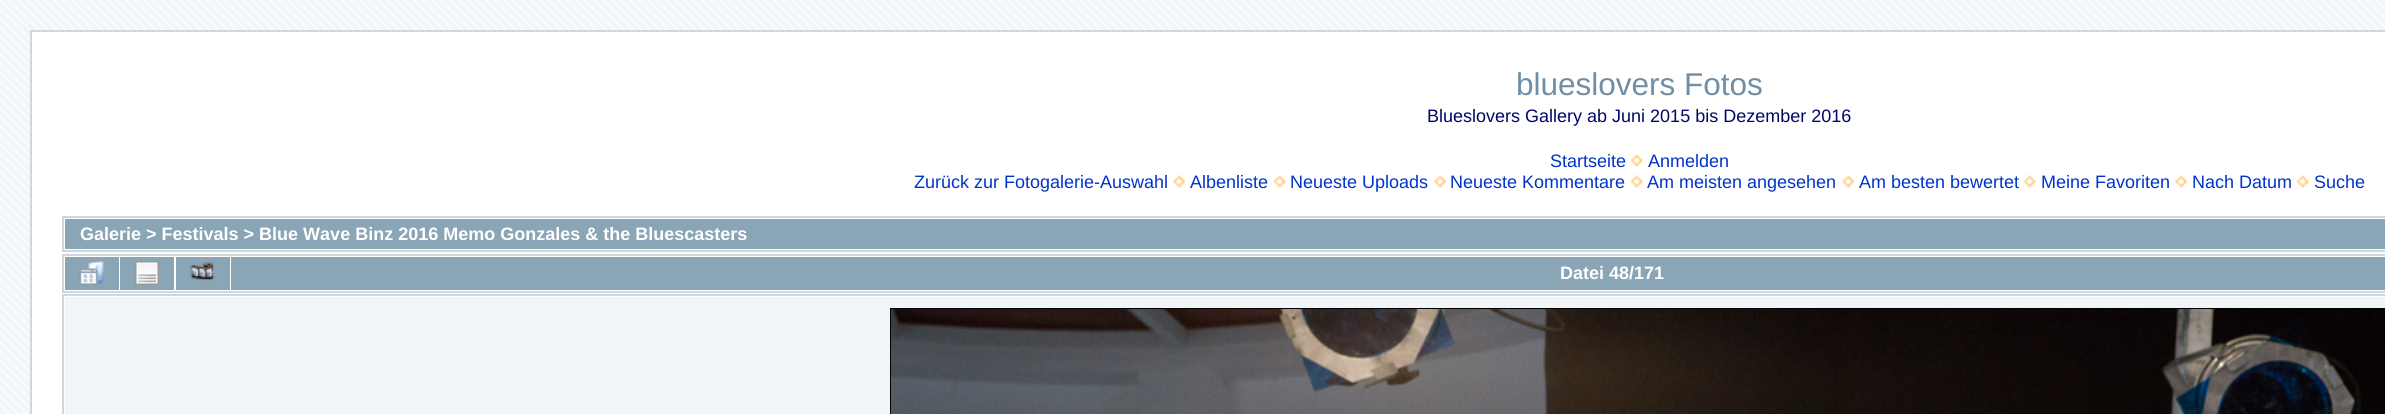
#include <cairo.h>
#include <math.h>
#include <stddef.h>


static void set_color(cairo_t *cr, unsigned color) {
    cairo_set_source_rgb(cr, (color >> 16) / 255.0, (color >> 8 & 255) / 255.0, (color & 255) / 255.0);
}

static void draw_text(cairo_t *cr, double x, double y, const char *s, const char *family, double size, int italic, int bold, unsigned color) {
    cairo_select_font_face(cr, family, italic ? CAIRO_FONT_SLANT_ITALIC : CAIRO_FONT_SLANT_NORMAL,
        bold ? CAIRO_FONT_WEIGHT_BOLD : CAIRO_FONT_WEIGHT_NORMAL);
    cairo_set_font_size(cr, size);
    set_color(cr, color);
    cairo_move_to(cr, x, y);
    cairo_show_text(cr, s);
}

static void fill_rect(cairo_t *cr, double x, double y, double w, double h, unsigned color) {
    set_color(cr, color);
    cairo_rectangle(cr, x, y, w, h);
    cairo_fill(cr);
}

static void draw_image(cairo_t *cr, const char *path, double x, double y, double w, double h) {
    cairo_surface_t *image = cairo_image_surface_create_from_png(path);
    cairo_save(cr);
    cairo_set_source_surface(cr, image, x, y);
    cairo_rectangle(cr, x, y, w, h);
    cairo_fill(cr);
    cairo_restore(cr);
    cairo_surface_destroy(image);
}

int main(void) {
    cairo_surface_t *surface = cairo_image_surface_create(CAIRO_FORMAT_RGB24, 2385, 414);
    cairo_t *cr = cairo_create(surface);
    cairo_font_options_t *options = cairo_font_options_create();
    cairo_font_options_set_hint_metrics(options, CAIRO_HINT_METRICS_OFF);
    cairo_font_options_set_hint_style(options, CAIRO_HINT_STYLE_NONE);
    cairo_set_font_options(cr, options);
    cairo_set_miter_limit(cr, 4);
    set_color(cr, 0xF2F5F7);
    cairo_paint(cr);
    draw_image(cr, "assets/img1.png", 0, 0, 2385, 414);
    set_color(cr, 0xFFFFFF);
    cairo_rectangle(cr, 31, 31, 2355, 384);
    cairo_fill_preserve(cr);
    set_color(cr, 0xCCD7E0);
    cairo_stroke(cr);
    draw_text(cr, 1516, 95, "blueslovers Fotos", "Liberation Sans", 31.5, 0, 0, 0x718EA5);
    draw_text(cr, 1427, 122, "Blueslovers Gallery ab Juni 2015 bis Dezember 2016", "Liberation Sans", 18, 0, 0, 0x000666);
    draw_text(cr, 1550, 167, "Startseite", "Liberation Sans", 18, 0, 0, 0x0033CC);
    draw_image(cr, "assets/img2.png", 1630, 154, 13, 13);
    draw_text(cr, 1648, 167, "Anmelden", "Liberation Sans", 18, 0, 0, 0x0033CC);
    draw_text(cr, 914, 188, "Zurück zur Fotogalerie-Auswahl", "Liberation Sans", 18, 0, 0, 0x0033CC);
    draw_image(cr, "assets/img3.png", 1173, 175, 12, 13);
    draw_text(cr, 1190, 188, "Albenliste", "Liberation Sans", 18, 0, 0, 0x0033CC);
    draw_image(cr, "assets/img4.png", 1273, 175, 13, 13);
    draw_text(cr, 1290, 188, "Neueste Uploads", "Liberation Sans", 18, 0, 0, 0x0033CC);
    draw_image(cr, "assets/img5.png", 1434, 175, 12, 13);
    draw_text(cr, 1450, 188, "Neueste Kommentare", "Liberation Sans", 18, 0, 0, 0x0033CC);
    draw_image(cr, "assets/img2.png", 1630, 175, 13, 13);
    draw_text(cr, 1647, 188, "Am meisten angesehen", "Liberation Sans", 18, 0, 0, 0x0033CC);
    draw_image(cr, "assets/img3.png", 1842, 175, 12, 13);
    draw_text(cr, 1859, 188, "Am besten bewertet", "Liberation Sans", 18, 0, 0, 0x0033CC);
    draw_image(cr, "assets/img2.png", 2023, 175, 13, 13);
    draw_text(cr, 2041, 188, "Meine Favoriten", "Liberation Sans", 18, 0, 0, 0x0033CC);
    draw_image(cr, "assets/img5.png", 2175, 175, 12, 13);
    draw_text(cr, 2192, 188, "Nach Datum", "Liberation Sans", 18, 0, 0, 0x0033CC);
    draw_image(cr, "assets/img2.png", 2296, 175, 13, 13);
    draw_text(cr, 2314, 188, "Suche", "Liberation Sans", 18, 0, 0, 0x0033CC);
    cairo_rectangle(cr, 63, 217, 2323, 34);
    set_color(cr, 0xCCD7E0);
    cairo_stroke(cr);
    fill_rect(cr, 65, 219, 2320, 30, 0x8AA5B5);
    draw_text(cr, 80, 240, "Galerie > Festivals > Blue Wave Binz 2016 Memo Gonzales & the Bluescasters", "Liberation Sans", 18, 0, 1, 0xFFFFFF);
    cairo_rectangle(cr, 63, 255, 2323, 37);
    set_color(cr, 0xCCD7E0);
    cairo_stroke(cr);
    fill_rect(cr, 65, 257, 54, 33, 0x8AA5B5);
    draw_image(cr, "assets/img6.png", 79, 261, 25, 24);
    fill_rect(cr, 120, 257, 54, 33, 0x8AA5B5);
    draw_image(cr, "assets/img7.png", 135, 261, 24, 24);
    fill_rect(cr, 176, 257, 54, 33, 0x8AA5B5);
    draw_image(cr, "assets/img8.png", 190, 262, 25, 19);
    fill_rect(cr, 231, 257, 2154, 33, 0x8AA5B5);
    draw_text(cr, 1560, 279, "Datei 48/171", "Liberation Sans", 18, 0, 1, 0xFFFFFF);
    cairo_rectangle(cr, 63, 295, 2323, 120);
    set_color(cr, 0xCCD7E0);
    cairo_stroke(cr);
    fill_rect(cr, 65, 297, 2320, 117, 0xF2F5F7);
    cairo_rectangle(cr, 891, 309, 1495, 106);
    set_color(cr, 0x000000);
    cairo_stroke(cr);
    draw_image(cr, "assets/img9.png", 891, 309, 1494, 105);
    cairo_surface_write_to_png(surface, "output.png");
    cairo_font_options_destroy(options);
    cairo_destroy(cr);
    cairo_surface_destroy(surface);
    return 0;
}
